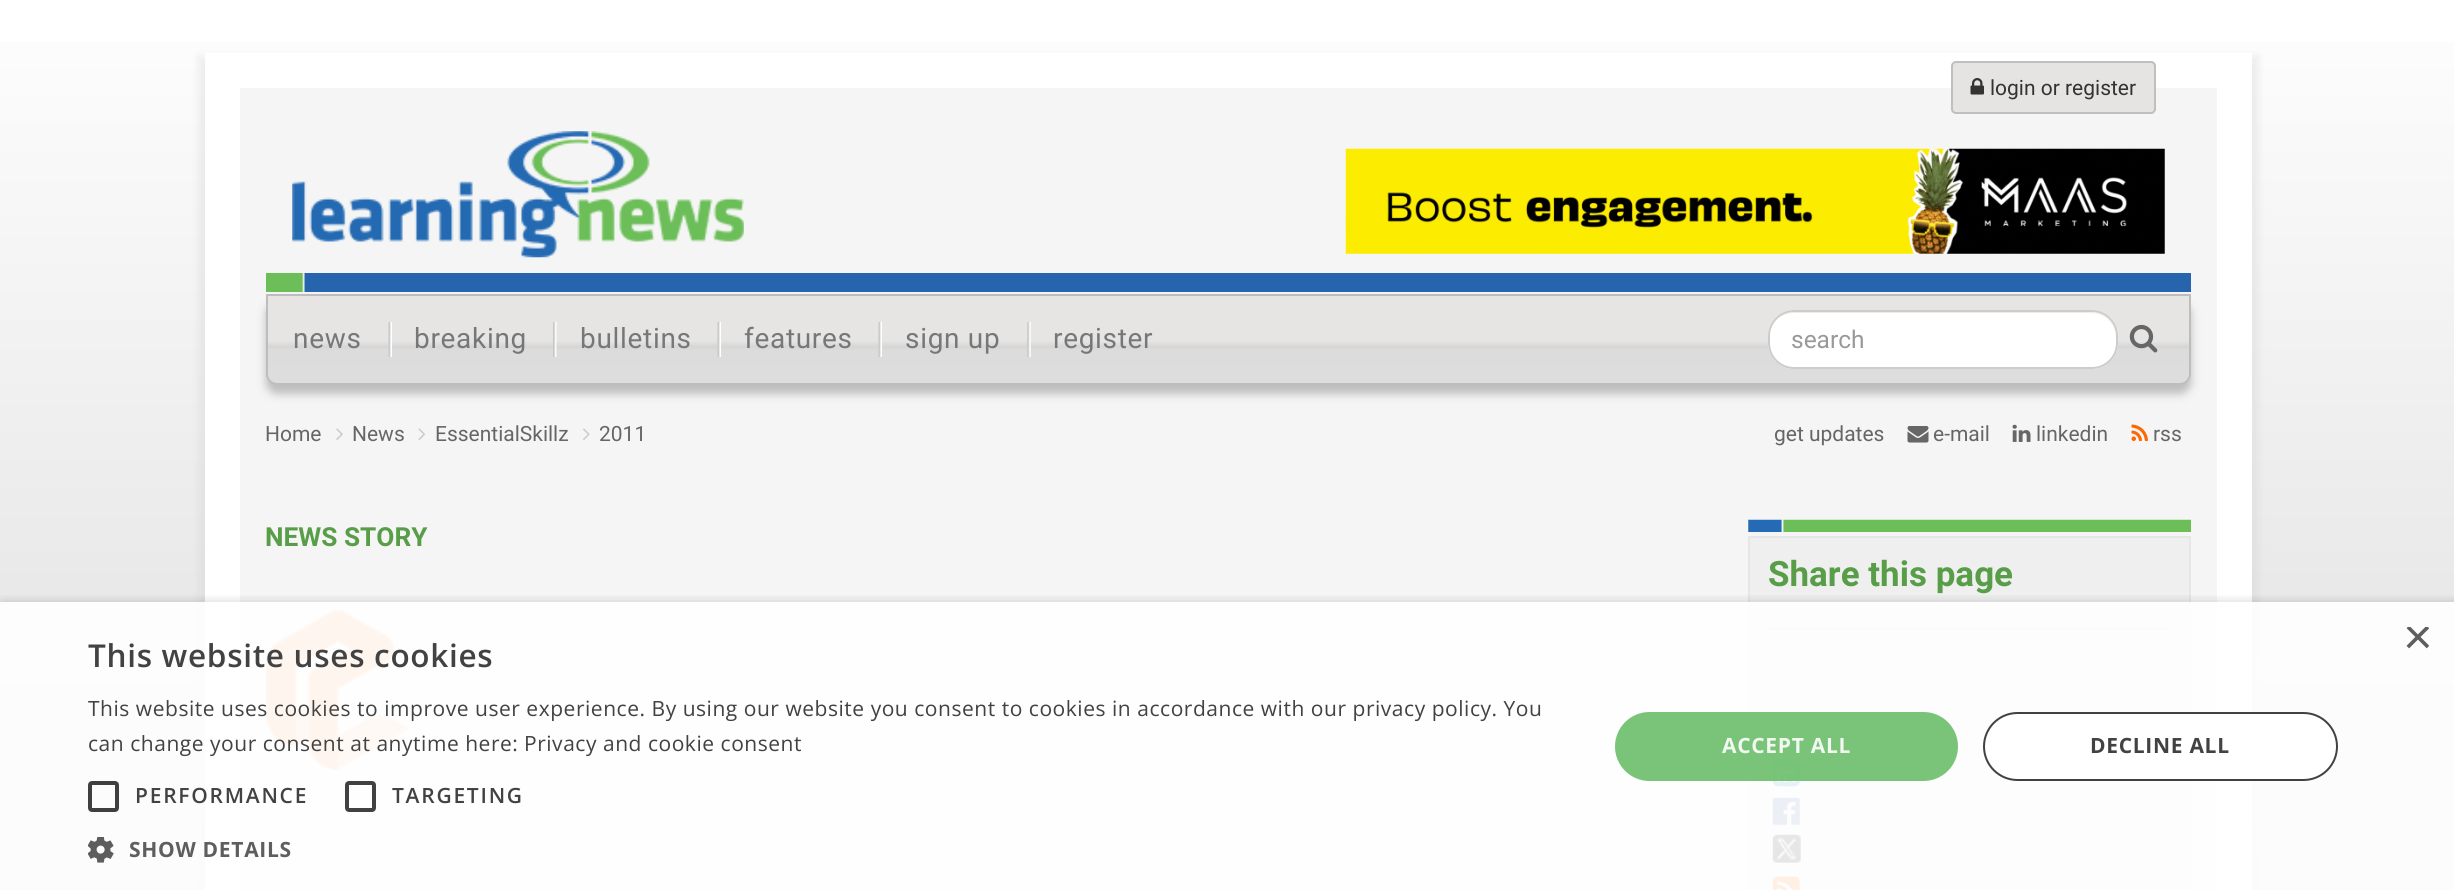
#include <cairo.h>
#include <math.h>
#include <stddef.h>


static void set_color(cairo_t *cr, unsigned color) {
    cairo_set_source_rgb(cr, (color >> 16) / 255.0, (color >> 8 & 255) / 255.0, (color & 255) / 255.0);
}

static void draw_text(cairo_t *cr, double x, double y, const char *s, const char *family, double size, int italic, int bold, unsigned color) {
    cairo_select_font_face(cr, family, italic ? CAIRO_FONT_SLANT_ITALIC : CAIRO_FONT_SLANT_NORMAL,
        bold ? CAIRO_FONT_WEIGHT_BOLD : CAIRO_FONT_WEIGHT_NORMAL);
    cairo_set_font_size(cr, size);
    set_color(cr, color);
    cairo_move_to(cr, x, y);
    cairo_show_text(cr, s);
}

static void draw_spaced(cairo_t *cr, double x, double y, const char *s, double letter, double word) {
    cairo_move_to(cr, x, y);
    while (*s) {
        char ch[5] = {0};
        int n = 0;
        do ch[n++] = *s++; while ((*s & 0xC0) == 0x80);
        cairo_show_text(cr, ch);
        cairo_rel_move_to(cr, letter + word * (*ch == ' '), 0);
    }
}

static void fill_rect(cairo_t *cr, double x, double y, double w, double h, unsigned color) {
    set_color(cr, color);
    cairo_rectangle(cr, x, y, w, h);
    cairo_fill(cr);
}

static void rounded_rect(cairo_t *cr, double x, double y, double w, double h, double r) {
    cairo_new_sub_path(cr);
    cairo_arc(cr, x + w - r, y + h - r, r, 0, M_PI / 2);
    cairo_arc(cr, x + r, y + h - r, r, M_PI / 2, M_PI);
    cairo_arc(cr, x + r, y + r, r, M_PI, 1.5 * M_PI);
    cairo_arc(cr, x + w - r, y + r, r, 1.5 * M_PI, 2 * M_PI);
    cairo_close_path(cr);
}

static void draw_shadow(cairo_t *cr, double x, double y, double w, double h, double r, double blur, double alpha) {
    cairo_push_group_with_content(cr, CAIRO_CONTENT_ALPHA);
    cairo_set_operator(cr, CAIRO_OPERATOR_SOURCE);
    for (int i = 15; i >= -15 && fmin(w, h) + blur * i / 3 > 0; i -= 2) {
        double e = blur * i / 6;
        cairo_set_source_rgba(cr, 0, 0, 0, alpha * erfc((i - 1) / 8.5) / 2);
        rounded_rect(cr, x - e, y - e, w + 2 * e, h + 2 * e, fmax(0, fmin(r + e + blur * .6, fmin(w, h) / 2 + e)));
        cairo_fill(cr);
    }
    cairo_pattern_t *soft = cairo_pop_group(cr);
    cairo_mask(cr, soft);
    cairo_pattern_destroy(soft);
}

static void draw_image(cairo_t *cr, const char *path, double x, double y, double w, double h) {
    cairo_surface_t *image = cairo_image_surface_create_from_png(path);
    cairo_save(cr);
    cairo_set_source_surface(cr, image, x, y);
    cairo_rectangle(cr, x, y, w, h);
    cairo_fill(cr);
    cairo_restore(cr);
    cairo_surface_destroy(image);
}

int main(void) {
    cairo_surface_t *surface = cairo_image_surface_create(CAIRO_FORMAT_RGB24, 2454, 890);
    cairo_t *cr = cairo_create(surface);
    cairo_font_options_t *options = cairo_font_options_create();
    cairo_font_options_set_hint_metrics(options, CAIRO_HINT_METRICS_OFF);
    cairo_font_options_set_hint_style(options, CAIRO_HINT_STYLE_NONE);
    cairo_set_font_options(cr, options);
    cairo_set_miter_limit(cr, 4);
    cairo_pattern_t *gradient;
    set_color(cr, 0xFFFFFF);
    cairo_paint(cr);
    gradient = cairo_pattern_create_linear(1228, 0, 1228, 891);
    cairo_pattern_add_color_stop_rgba(gradient, 0, 0.996, 0.996, 0.996, 1);
    cairo_pattern_add_color_stop_rgba(gradient, 1, 0.871, 0.871, 0.871, 1);
    cairo_set_source(cr, gradient);
    cairo_pattern_destroy(gradient);
    cairo_rectangle(cr, 0, 42, 2454, 848);
    cairo_fill(cr);
    set_color(cr, 0xCCCCCC);
    draw_shadow(cr, 198, 56, 2061, 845, 0, 3.5, 0.3);
    set_color(cr, 0xF5F5F5);
    cairo_rectangle(cr, 222.5, 70.5, 2012, 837);
    cairo_fill_preserve(cr);
    set_color(cr, 0xFFFFFF);
    cairo_set_line_width(cr, 35);
    cairo_stroke(cr);
    draw_image(cr, "assets/img1.png", 266, 273, 1925, 19);
    set_color(cr, 0xE5E4E2);
    rounded_rect(cr, 1952, 62, 203, 51, 4);
    cairo_fill_preserve(cr);
    set_color(cr, 0xBFBFBF);
    cairo_set_line_width(cr, 2);
    cairo_stroke(cr);
    draw_image(cr, "assets/img2.png", 1970, 78, 14, 17);
    draw_text(cr, 1990, 95, "login or register", "Roboto", 21, 0, 0, 0x333333);
    draw_image(cr, "assets/img3.png", 292, 131, 452, 127);
    draw_image(cr, "assets/img4.png", 1345, 148, 820, 106);
    set_color(cr, 0xBDBDBD);
    draw_shadow(cr, 266, 303, 1925, 91, 11, 4.5, 1);
    cairo_save(cr);
    cairo_new_path(cr);
    cairo_move_to(cr, 266, 294);
    cairo_line_to(cr, 2191, 294);
    cairo_line_to(cr, 2191, 374);
    cairo_curve_to(cr, 2191, 380, 2186, 385, 2180, 385);
    cairo_line_to(cr, 277, 385);
    cairo_curve_to(cr, 271, 385, 266, 380, 266, 374);
    cairo_close_path(cr);
    cairo_clip(cr);
    gradient = cairo_pattern_create_linear(1229, 296, 1229, 383);
    cairo_pattern_add_color_stop_rgba(gradient, 0, 0.902, 0.898, 0.894, 1);
    cairo_pattern_add_color_stop_rgba(gradient, 0.52, 0.902, 0.898, 0.894, 1);
    cairo_pattern_add_color_stop_rgba(gradient, 0.58, 0.839, 0.839, 0.839, 1);
    cairo_pattern_add_color_stop_rgba(gradient, 0.63, 0.867, 0.863, 0.863, 1);
    cairo_pattern_add_color_stop_rgba(gradient, 1, 0.867, 0.867, 0.867, 1);
    cairo_set_source(cr, gradient);
    cairo_pattern_destroy(gradient);
    cairo_rectangle(cr, 266, 296, 1925, 87);
    cairo_fill(cr);
    cairo_restore(cr);
    cairo_new_path(cr);
    cairo_move_to(cr, 267, 295);
    cairo_line_to(cr, 2190, 295);
    cairo_line_to(cr, 2190, 374);
    cairo_curve_to(cr, 2190, 379.5, 2185.5, 384, 2180, 384);
    cairo_line_to(cr, 277, 384);
    cairo_curve_to(cr, 271.5, 384, 267, 379.5, 267, 374);
    cairo_close_path(cr);
    set_color(cr, 0xBDBDBD);
    cairo_stroke(cr);
    cairo_set_font_size(cr, 28);
    set_color(cr, 0x777777);
    draw_spaced(cr, 293, 348, "news", 0.7, 0);
    draw_image(cr, "assets/img5.png", 388, 322, 4, 35);
    draw_spaced(cr, 414, 348, "breaking", 0.7, 0);
    draw_image(cr, "assets/img6.png", 553, 322, 4, 35);
    draw_spaced(cr, 580, 348, "bulletins", 0.7, 0);
    draw_image(cr, "assets/img5.png", 717, 322, 4, 35);
    draw_spaced(cr, 744, 348, "features", 0.7, 0);
    draw_image(cr, "assets/img5.png", 878, 322, 4, 35);
    draw_spaced(cr, 905, 348, "sign up", 0.7, 0);
    draw_image(cr, "assets/img7.png", 1027, 322, 4, 35);
    draw_spaced(cr, 1053, 348, "register", 0.7, 0);
    set_color(cr, 0xFFFFFF);
    rounded_rect(cr, 1768, 310, 350, 59, 26);
    cairo_fill(cr);
    set_color(cr, 0xECECEC);
    cairo_new_path(cr);
    cairo_move_to(cr, 1794, 313);
    cairo_line_to(cr, 2091, 313);
    cairo_curve_to(cr, 2105, 313, 2116, 324, 2116, 338);
    cairo_line_to(cr, 2116, 337);
    cairo_curve_to(cr, 2116, 323, 2105, 312, 2091, 312);
    cairo_line_to(cr, 1794, 312);
    cairo_curve_to(cr, 1780, 312, 1769, 323, 1769, 337);
    cairo_line_to(cr, 1769, 338);
    cairo_curve_to(cr, 1769, 324, 1780, 313, 1794, 313);
    cairo_close_path(cr);
    cairo_fill(cr);
    rounded_rect(cr, 1769, 311, 348, 57, 25);
    set_color(cr, 0xCCCCCC);
    cairo_stroke(cr);
    draw_text(cr, 1791, 348, "search", "Roboto", 24.5, 0, 0, 0x999999);
    draw_image(cr, "assets/img8.png", 2129, 324, 29, 29);
    draw_text(cr, 265, 441, "Home", "Roboto", 21, 0, 0, 0x666666);
    draw_image(cr, "assets/img9.png", 336, 428, 7, 12);
    draw_text(cr, 352, 441, "News", "Roboto", 21, 0, 0, 0x666666);
    draw_image(cr, "assets/img10.png", 418, 428, 7, 12);
    draw_text(cr, 435, 441, "EssentialSkillz", "Roboto", 21, 0, 0, 0x666666);
    draw_image(cr, "assets/img11.png", 583, 428, 7, 12);
    draw_text(cr, 599, 441, "2011", "Roboto", 21, 0, 0, 0x666666);
    draw_text(cr, 1774, 441, "get updates", "Roboto", 21, 0, 0, 0x666666);
    draw_image(cr, "assets/img12.png", 1907, 426, 22, 17);
    draw_text(cr, 1933, 441, "e-mail", "Roboto", 21, 0, 0, 0x666666);
    draw_image(cr, "assets/img13.png", 2012, 424, 19, 18);
    draw_text(cr, 2036, 441, "linkedin", "Roboto", 21, 0, 0, 0x666666);
    draw_image(cr, "assets/img14.png", 2131, 424, 17, 17);
    draw_text(cr, 2153, 441, "rss", "Roboto", 21, 0, 0, 0x666666);
    draw_text(cr, 265, 546, "NEWS STORY", "Roboto", 26.25, 0, 1, 0x589D47);
    draw_image(cr, "assets/img15.png", 266, 610, 144, 160);
    draw_image(cr, "assets/img16.png", 1748, 519, 443, 13);
    set_color(cr, 0xF0EFEF);
    cairo_rectangle(cr, 1749, 537, 441, 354);
    cairo_fill_preserve(cr);
    set_color(cr, 0xE6E6E6);
    cairo_stroke(cr);
    draw_text(cr, 1768, 586, "Share this page", "Roboto", 35, 0, 1, 0x589D47);
    fill_rect(cr, 1768, 628, 404, 2, 0xDDDADA);
    draw_image(cr, "assets/img17.png", 1772, 759, 28, 28);
    draw_image(cr, "assets/img18.png", 1772, 797, 28, 28);
    draw_image(cr, "assets/img19.png", 1772, 834, 29, 29);
    draw_image(cr, "assets/img20.png", 1772, 876, 28, 14);
    cairo_save(cr);
    cairo_rectangle(cr, 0, 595, 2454, 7);
    cairo_clip(cr);
    set_color(cr, 0x000000);
    draw_shadow(cr, 2, 606, 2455, 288, 0, 7, 0.32);
    cairo_restore(cr);
    cairo_set_source_rgba(cr, 1, 1, 1, 0.9);
    cairo_rectangle(cr, 0, 602, 2454, 288);
    cairo_fill(cr);
    cairo_save(cr);
    cairo_rectangle(cr, 2403, 627, 26, 26);
    cairo_clip(cr);
    draw_text(cr, 2403, 654, "×", "Liberation Sans", 51, 0, 0, 0x5E5E5E);
    cairo_restore(cr);
    cairo_select_font_face(cr, "Open Sans SemiBold", CAIRO_FONT_SLANT_NORMAL, CAIRO_FONT_WEIGHT_NORMAL);
    cairo_set_font_size(cr, 31.5);
    set_color(cr, 0x424242);
    draw_spaced(cr, 88, 667, "This website uses cookies", 0.7, 0);
    cairo_select_font_face(cr, "Open Sans", CAIRO_FONT_SLANT_NORMAL, CAIRO_FONT_WEIGHT_NORMAL);
    cairo_set_font_size(cr, 21);
    draw_spaced(cr, 88, 716, "This website uses cookies to improve user experience. By using our website you consent to cookies in accordance with our privacy policy. You", 0.53, 0);
    draw_spaced(cr, 88, 751, "can change your consent at anytime here:", 0.53, 0);
    draw_spaced(cr, 524, 751, "Privacy and cookie consent", 0.53, 0);
    rounded_rect(cr, 90, 783, 27, 27, 2);
    set_color(cr, 0x3F3F3F);
    cairo_set_line_width(cr, 4);
    cairo_stroke(cr);
    cairo_select_font_face(cr, "Open Sans SemiBold", CAIRO_FONT_SLANT_NORMAL, CAIRO_FONT_WEIGHT_NORMAL);
    set_color(cr, 0x424242);
    draw_spaced(cr, 135, 803, "PERFORMANCE", 1.75, 0);
    rounded_rect(cr, 347, 783, 27, 27, 2);
    set_color(cr, 0x414141);
    cairo_stroke(cr);
    set_color(cr, 0x424242);
    draw_spaced(cr, 392, 803, "TARGETING", 1.75, 0);
    draw_image(cr, "assets/img21.png", 88, 837, 26, 26);
    cairo_select_font_face(cr, "Open Sans", CAIRO_FONT_SLANT_NORMAL, CAIRO_FONT_WEIGHT_BOLD);
    set_color(cr, 0x5E5E5E);
    draw_spaced(cr, 129, 857, "SHOW DETAILS", 0.7, 0);
    cairo_set_source_rgba(cr, 0.42, 0.745, 0.42, 0.9);
    rounded_rect(cr, 1615, 712, 343, 69, 34.5);
    cairo_fill(cr);
    set_color(cr, 0xF2F9F2);
    draw_spaced(cr, 1722, 753, "ACCEPT ALL", 0.7, 0);
    cairo_set_source_rgba(cr, 1, 1, 1, 0.9);
    rounded_rect(cr, 1983, 712, 355, 69, 34.5);
    cairo_fill(cr);
    rounded_rect(cr, 1984, 713, 353, 67, 33.5);
    cairo_set_source_rgba(cr, 0.176, 0.176, 0.176, 0.9);
    cairo_set_line_width(cr, 2);
    cairo_stroke(cr);
    set_color(cr, 0x424242);
    draw_spaced(cr, 2090, 753, "DECLINE ALL", 0.7, 0);
    cairo_surface_write_to_png(surface, "output.png");
    cairo_font_options_destroy(options);
    cairo_destroy(cr);
    cairo_surface_destroy(surface);
    return 0;
}
